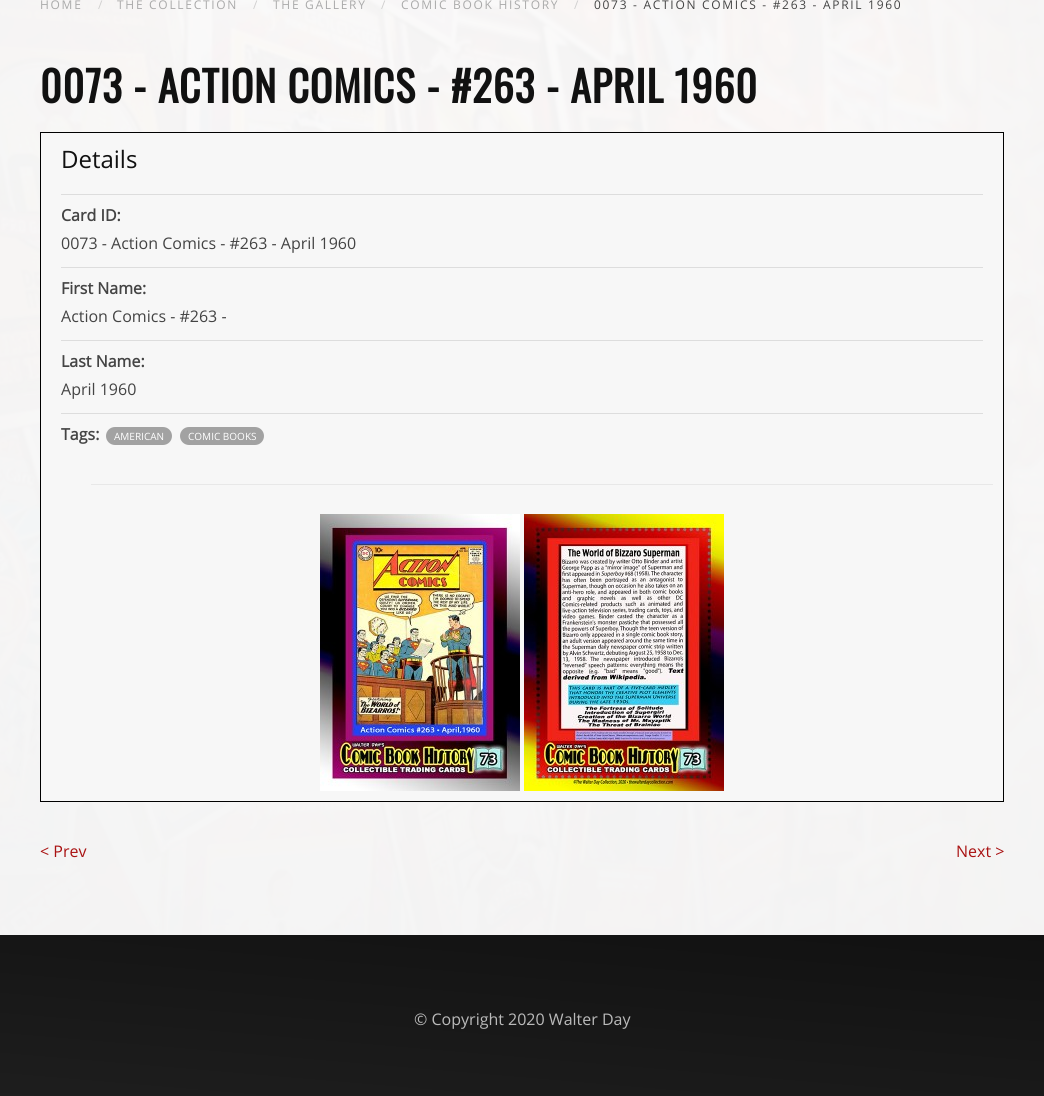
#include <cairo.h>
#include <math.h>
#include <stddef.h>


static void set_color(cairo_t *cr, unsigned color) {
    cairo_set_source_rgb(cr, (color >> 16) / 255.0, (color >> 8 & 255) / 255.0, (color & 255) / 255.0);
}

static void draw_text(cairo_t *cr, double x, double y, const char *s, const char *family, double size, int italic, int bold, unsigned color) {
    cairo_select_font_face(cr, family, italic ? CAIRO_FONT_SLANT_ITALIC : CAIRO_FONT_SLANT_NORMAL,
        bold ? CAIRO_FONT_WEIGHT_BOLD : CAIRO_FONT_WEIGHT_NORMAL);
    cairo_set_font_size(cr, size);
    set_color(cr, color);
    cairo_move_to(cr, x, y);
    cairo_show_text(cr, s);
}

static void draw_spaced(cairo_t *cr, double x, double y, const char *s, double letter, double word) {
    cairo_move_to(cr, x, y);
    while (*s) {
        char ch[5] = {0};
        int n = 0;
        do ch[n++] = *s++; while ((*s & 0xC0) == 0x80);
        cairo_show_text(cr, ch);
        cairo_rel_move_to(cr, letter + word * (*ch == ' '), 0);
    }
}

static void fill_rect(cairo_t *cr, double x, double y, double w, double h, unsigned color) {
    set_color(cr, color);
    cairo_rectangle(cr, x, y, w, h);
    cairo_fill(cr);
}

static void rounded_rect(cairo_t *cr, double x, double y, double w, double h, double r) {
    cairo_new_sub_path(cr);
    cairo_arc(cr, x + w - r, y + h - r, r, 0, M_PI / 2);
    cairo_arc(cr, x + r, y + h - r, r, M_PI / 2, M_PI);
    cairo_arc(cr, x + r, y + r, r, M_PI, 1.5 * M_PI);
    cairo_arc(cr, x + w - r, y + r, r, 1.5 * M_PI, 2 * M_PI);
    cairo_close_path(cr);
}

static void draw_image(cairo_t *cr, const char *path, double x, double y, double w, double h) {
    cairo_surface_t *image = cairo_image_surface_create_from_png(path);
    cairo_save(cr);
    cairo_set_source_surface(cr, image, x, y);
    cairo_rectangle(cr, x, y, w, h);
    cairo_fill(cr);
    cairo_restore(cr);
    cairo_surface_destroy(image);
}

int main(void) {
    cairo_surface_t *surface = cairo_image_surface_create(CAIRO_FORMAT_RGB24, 1044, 1096);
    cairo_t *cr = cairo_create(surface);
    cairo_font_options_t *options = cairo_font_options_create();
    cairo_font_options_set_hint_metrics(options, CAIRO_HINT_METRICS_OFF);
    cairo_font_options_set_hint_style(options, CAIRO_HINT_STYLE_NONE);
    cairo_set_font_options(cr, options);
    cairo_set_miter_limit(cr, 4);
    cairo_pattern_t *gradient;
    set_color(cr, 0xFFFFFF);
    cairo_paint(cr);
    draw_image(cr, "assets/img1.png", 0, 0, 1044, 935);
    cairo_set_source_rgba(cr, 1, 1, 1, 0.95);
    cairo_rectangle(cr, 0, 0, 1044, 935);
    cairo_fill(cr);
    cairo_select_font_face(cr, "Open Sans", CAIRO_FONT_SLANT_NORMAL, CAIRO_FONT_WEIGHT_NORMAL);
    cairo_set_font_size(cr, 12);
    set_color(cr, 0xAAAAAA);
    draw_spaced(cr, 40, 9, "HOME", 1.7, 0);
    draw_text(cr, 98, 9, "/", "Open Sans", 12, 0, 0, 0xD0CFCF);
    set_color(cr, 0xAAAAAA);
    draw_spaced(cr, 117, 9, "THE COLLECTION", 1.7, 0);
    draw_text(cr, 253, 9, "/", "Open Sans", 12, 0, 0, 0xD0CFCF);
    set_color(cr, 0xAAAAAA);
    draw_spaced(cr, 273, 9, "THE GALLERY", 1.7, 0);
    draw_text(cr, 381, 9, "/", "Open Sans", 12, 0, 0, 0xD0CFCF);
    set_color(cr, 0xAAAAAA);
    draw_spaced(cr, 401, 9, "COMIC BOOK HISTORY", 1.7, 0);
    draw_text(cr, 574, 9, "/", "Open Sans", 12, 0, 0, 0xD0CFCF);
    set_color(cr, 0x444444);
    draw_spaced(cr, 594, 9, "0073 - ACTION COMICS - #263 - APRIL 1960", 1.7, 0);
    cairo_select_font_face(cr, "Oswald", CAIRO_FONT_SLANT_NORMAL, CAIRO_FONT_WEIGHT_BOLD);
    cairo_set_font_size(cr, 42);
    set_color(cr, 0x111111);
    draw_spaced(cr, 40, 103, "0073 - ACTION COMICS - #263 - APRIL 1960", 0.75, 0);
    set_color(cr, 0xF7F7F7);
    cairo_rectangle(cr, 40.5, 132.5, 963, 669);
    cairo_fill_preserve(cr);
    set_color(cr, 0x000000);
    cairo_set_line_width(cr, 1);
    cairo_stroke(cr);
    draw_text(cr, 61, 168, "Details", "Open Sans", 24, 0, 0, 0x111111);
    fill_rect(cr, 61, 194, 922, 1, 0xDDDDDD);
    draw_text(cr, 61, 221, "Card ID:", "Open Sans", 16, 0, 1, 0x444444);
    draw_text(cr, 61, 249, "0073 - Action Comics - #263 - April 1960", "Open Sans", 16, 0, 0, 0x444444);
    fill_rect(cr, 61, 267, 922, 1, 0xDDDDDD);
    draw_text(cr, 61, 294, "First Name:", "Open Sans", 16, 0, 1, 0x444444);
    draw_text(cr, 61, 322, "Action Comics - #263 -", "Open Sans", 16, 0, 0, 0x444444);
    fill_rect(cr, 61, 340, 922, 1, 0xDDDDDD);
    draw_text(cr, 61, 367, "Last Name:", "Open Sans", 16, 0, 1, 0x444444);
    draw_text(cr, 61, 395, "April 1960", "Open Sans", 16, 0, 0, 0x444444);
    fill_rect(cr, 61, 413, 922, 1, 0xDDDDDD);
    draw_text(cr, 61, 440, "Tags:", "Open Sans", 16, 0, 1, 0x444444);
    set_color(cr, 0xA2A2A2);
    rounded_rect(cr, 106, 427, 66, 18, 9);
    cairo_fill(cr);
    draw_text(cr, 114, 440, "AMERICAN", "Open Sans", 10, 0, 0, 0xFFFFFF);
    set_color(cr, 0xA2A2A2);
    rounded_rect(cr, 180, 427, 84, 18, 9);
    cairo_fill(cr);
    draw_text(cr, 188, 440, "COMIC BOOKS", "Open Sans", 10, 0, 0, 0xFFFFFF);
    fill_rect(cr, 91, 484, 902, 1, 0xE8E8E8);
    draw_image(cr, "assets/img2.png", 320, 514, 200, 277);
    draw_image(cr, "assets/img3.png", 524, 514, 200, 277);
    draw_text(cr, 40, 857, "< Prev", "Open Sans", 16, 0, 0, 0xA91212);
    draw_text(cr, 956, 857, "Next >", "Open Sans", 16, 0, 0, 0xA91212);
    gradient = cairo_pattern_create_linear(511, 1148, 533, 890);
    cairo_pattern_add_color_stop_rgba(gradient, 0, 0.118, 0.118, 0.118, 1);
    cairo_pattern_add_color_stop_rgba(gradient, 1, 0.067, 0.067, 0.067, 1);
    cairo_set_source(cr, gradient);
    cairo_pattern_destroy(gradient);
    cairo_rectangle(cr, 0, 935, 1044, 161);
    cairo_fill(cr);
    draw_text(cr, 414, 1025, "© Copyright 2020 Walter Day", "Open Sans", 16, 0, 0, 0xBABABA);
    cairo_surface_write_to_png(surface, "output.png");
    cairo_font_options_destroy(options);
    cairo_destroy(cr);
    cairo_surface_destroy(surface);
    return 0;
}
